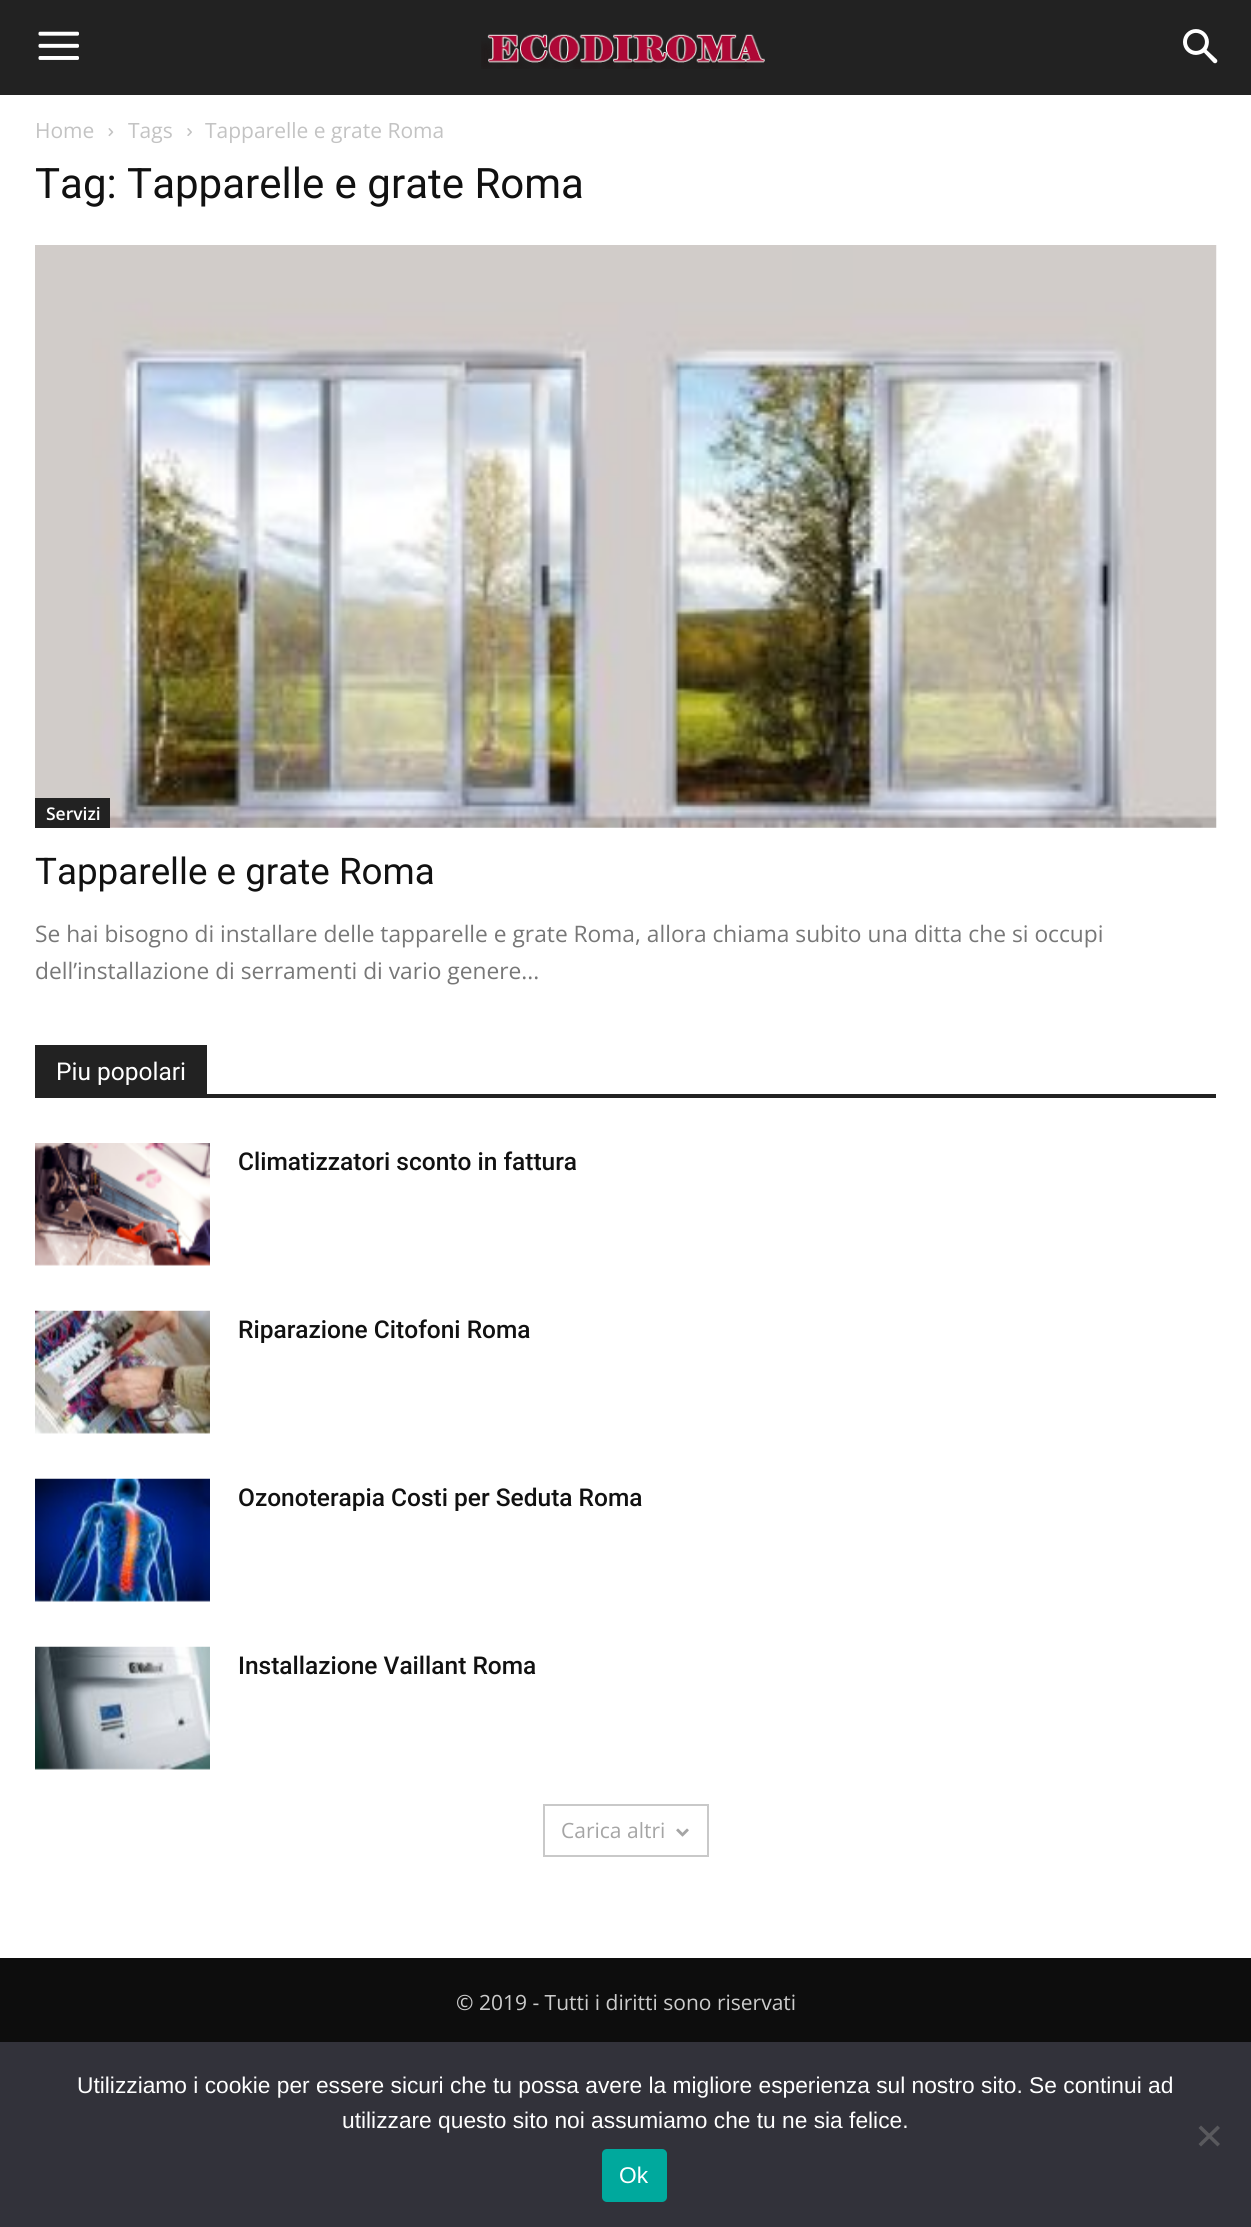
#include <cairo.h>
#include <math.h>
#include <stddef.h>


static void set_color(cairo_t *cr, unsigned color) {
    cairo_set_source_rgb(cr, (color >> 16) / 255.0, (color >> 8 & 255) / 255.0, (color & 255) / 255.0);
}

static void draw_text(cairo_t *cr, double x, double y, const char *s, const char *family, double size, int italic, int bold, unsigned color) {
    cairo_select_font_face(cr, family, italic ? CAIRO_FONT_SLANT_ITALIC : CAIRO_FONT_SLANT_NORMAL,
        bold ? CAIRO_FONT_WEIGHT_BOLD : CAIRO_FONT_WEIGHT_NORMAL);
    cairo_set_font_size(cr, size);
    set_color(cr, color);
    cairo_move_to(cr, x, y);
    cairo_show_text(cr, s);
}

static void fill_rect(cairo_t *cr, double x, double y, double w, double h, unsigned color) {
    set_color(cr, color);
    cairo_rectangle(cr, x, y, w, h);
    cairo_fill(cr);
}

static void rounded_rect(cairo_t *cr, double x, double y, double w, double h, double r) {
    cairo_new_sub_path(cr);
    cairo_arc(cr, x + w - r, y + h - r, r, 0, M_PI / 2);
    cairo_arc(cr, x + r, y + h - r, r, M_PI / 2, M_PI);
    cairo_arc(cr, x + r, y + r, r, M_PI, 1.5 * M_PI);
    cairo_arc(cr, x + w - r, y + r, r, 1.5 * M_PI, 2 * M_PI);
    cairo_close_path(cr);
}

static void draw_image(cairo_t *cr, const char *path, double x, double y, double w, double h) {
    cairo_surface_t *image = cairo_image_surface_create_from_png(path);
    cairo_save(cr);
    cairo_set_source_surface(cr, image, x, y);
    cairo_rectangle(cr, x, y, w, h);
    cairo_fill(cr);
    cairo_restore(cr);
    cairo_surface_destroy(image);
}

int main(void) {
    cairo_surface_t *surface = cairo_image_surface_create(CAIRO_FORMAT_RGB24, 1251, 2227);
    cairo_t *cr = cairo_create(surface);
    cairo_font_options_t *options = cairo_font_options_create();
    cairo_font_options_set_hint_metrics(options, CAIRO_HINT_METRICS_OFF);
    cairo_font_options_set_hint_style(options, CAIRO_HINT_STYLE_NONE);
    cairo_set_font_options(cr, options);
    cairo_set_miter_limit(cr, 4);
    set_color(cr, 0xFFFFFF);
    cairo_paint(cr);
    fill_rect(cr, 0, 0, 1251, 95, 0x222222);
    draw_image(cr, "assets/img1.png", 38, 31, 41, 29);
    draw_image(cr, "assets/img2.png", 481, 34, 284, 35);
    draw_image(cr, "assets/img3.png", 1183, 29, 35, 35);
    draw_text(cr, 35, 138, "Home", "Open Sans", 21, 0, 0, 0xC3C3C3);
    draw_image(cr, "assets/img4.png", 108, 128, 6, 9);
    draw_text(cr, 128, 138, "Tags", "Open Sans", 21, 0, 0, 0xC3C3C3);
    draw_image(cr, "assets/img5.png", 187, 128, 5, 8);
    draw_text(cr, 205, 138, "Tapparelle e grate Roma", "Open Sans", 21, 0, 0, 0xC3C3C3);
    draw_text(cr, 35, 198, "Tag: Tapparelle e grate Roma", "Roboto", 42, 0, 0, 0x111111);
    draw_image(cr, "assets/img6.png", 35, 245, 1182, 583);
    fill_rect(cr, 35, 798, 75, 30, 0x222222);
    draw_text(cr, 46, 820, "Servizi", "Open Sans SemiBold", 17.5, 0, 0, 0xFFFFFF);
    draw_text(cr, 35, 884, "Tapparelle e grate Roma", "Roboto", 36.75, 0, 0, 0x111111);
    draw_text(cr, 35, 942, "Se hai bisogno di installare delle tapparelle e grate Roma, allora chiama subito una ditta che si occupi", "Open Sans", 22.75, 0, 0, 0x777777);
    draw_text(cr, 35, 979, "dell’installazione di serramenti di vario genere...", "Open Sans", 22.75, 0, 0, 0x777777);
    fill_rect(cr, 35, 1094, 1181, 4, 0x222222);
    fill_rect(cr, 35, 1045, 172, 49, 0x222222);
    draw_text(cr, 56, 1080, "Piu popolari", "Roboto", 24.5, 0, 0, 0xFFFFFF);
    draw_image(cr, "assets/img7.png", 35, 1143, 175, 123);
    draw_text(cr, 238, 1170, "Climatizzatori sconto in fattura", "Roboto Medium", 24.5, 0, 0, 0x111111);
    draw_image(cr, "assets/img8.png", 35, 1310, 175, 124);
    draw_text(cr, 238, 1338, "Riparazione Citofoni Roma", "Roboto Medium", 24.5, 0, 0, 0x111111);
    draw_image(cr, "assets/img9.png", 35, 1478, 175, 124);
    draw_text(cr, 238, 1506, "Ozonoterapia Costi per Seduta Roma", "Roboto Medium", 24.5, 0, 0, 0x111111);
    draw_image(cr, "assets/img10.png", 35, 1646, 175, 124);
    draw_text(cr, 238, 1674, "Installazione Vaillant Roma", "Roboto Medium", 24.5, 0, 0, 0x111111);
    cairo_rectangle(cr, 544, 1805, 164, 51);
    set_color(cr, 0xC9C9C9);
    cairo_stroke(cr);
    draw_text(cr, 561, 1838, "Carica altri", "Open Sans", 21, 0, 0, 0xA5A5A5);
    draw_image(cr, "assets/img11.png", 676, 1828, 13, 9);
    fill_rect(cr, 0, 1958, 1251, 84, 0x0D0D0D);
    draw_text(cr, 456, 2010, "© 2019 - Tutti i diritti sono riservati", "Open Sans", 21, 0, 0, 0xCCCCCC);
    fill_rect(cr, 0, 2042, 1251, 185, 0x32323A);
    draw_text(cr, 77, 2093, "Utilizziamo i cookie per essere sicuri che tu possa avere la migliore esperienza sul nostro sito. Se continui ad", "Liberation Sans", 22.75, 0, 0, 0xFFFFFF);
    draw_text(cr, 342, 2128, "utilizzare questo sito noi assumiamo che tu ne sia felice.", "Liberation Sans", 22.75, 0, 0, 0xFFFFFF);
    set_color(cr, 0x59595D);
    cairo_new_path(cr);
    cairo_move_to(cr, 1217.5, 2125.5);
    cairo_line_to(cr, 1220, 2128);
    cairo_line_to(cr, 1201, 2146.5);
    cairo_line_to(cr, 1198.5, 2144);
    cairo_close_path(cr);
    cairo_fill(cr);
    cairo_new_path(cr);
    cairo_move_to(cr, 1198.5, 2128);
    cairo_line_to(cr, 1201, 2125.5);
    cairo_line_to(cr, 1220, 2144);
    cairo_line_to(cr, 1217.5, 2146.5);
    cairo_close_path(cr);
    cairo_fill(cr);
    set_color(cr, 0x00A99D);
    rounded_rect(cr, 602, 2149, 65, 53, 5);
    cairo_fill(cr);
    draw_text(cr, 619, 2183, "Ok", "Liberation Sans", 22.75, 0, 0, 0xFFFFFF);
    cairo_surface_write_to_png(surface, "output.png");
    cairo_font_options_destroy(options);
    cairo_destroy(cr);
    cairo_surface_destroy(surface);
    return 0;
}
